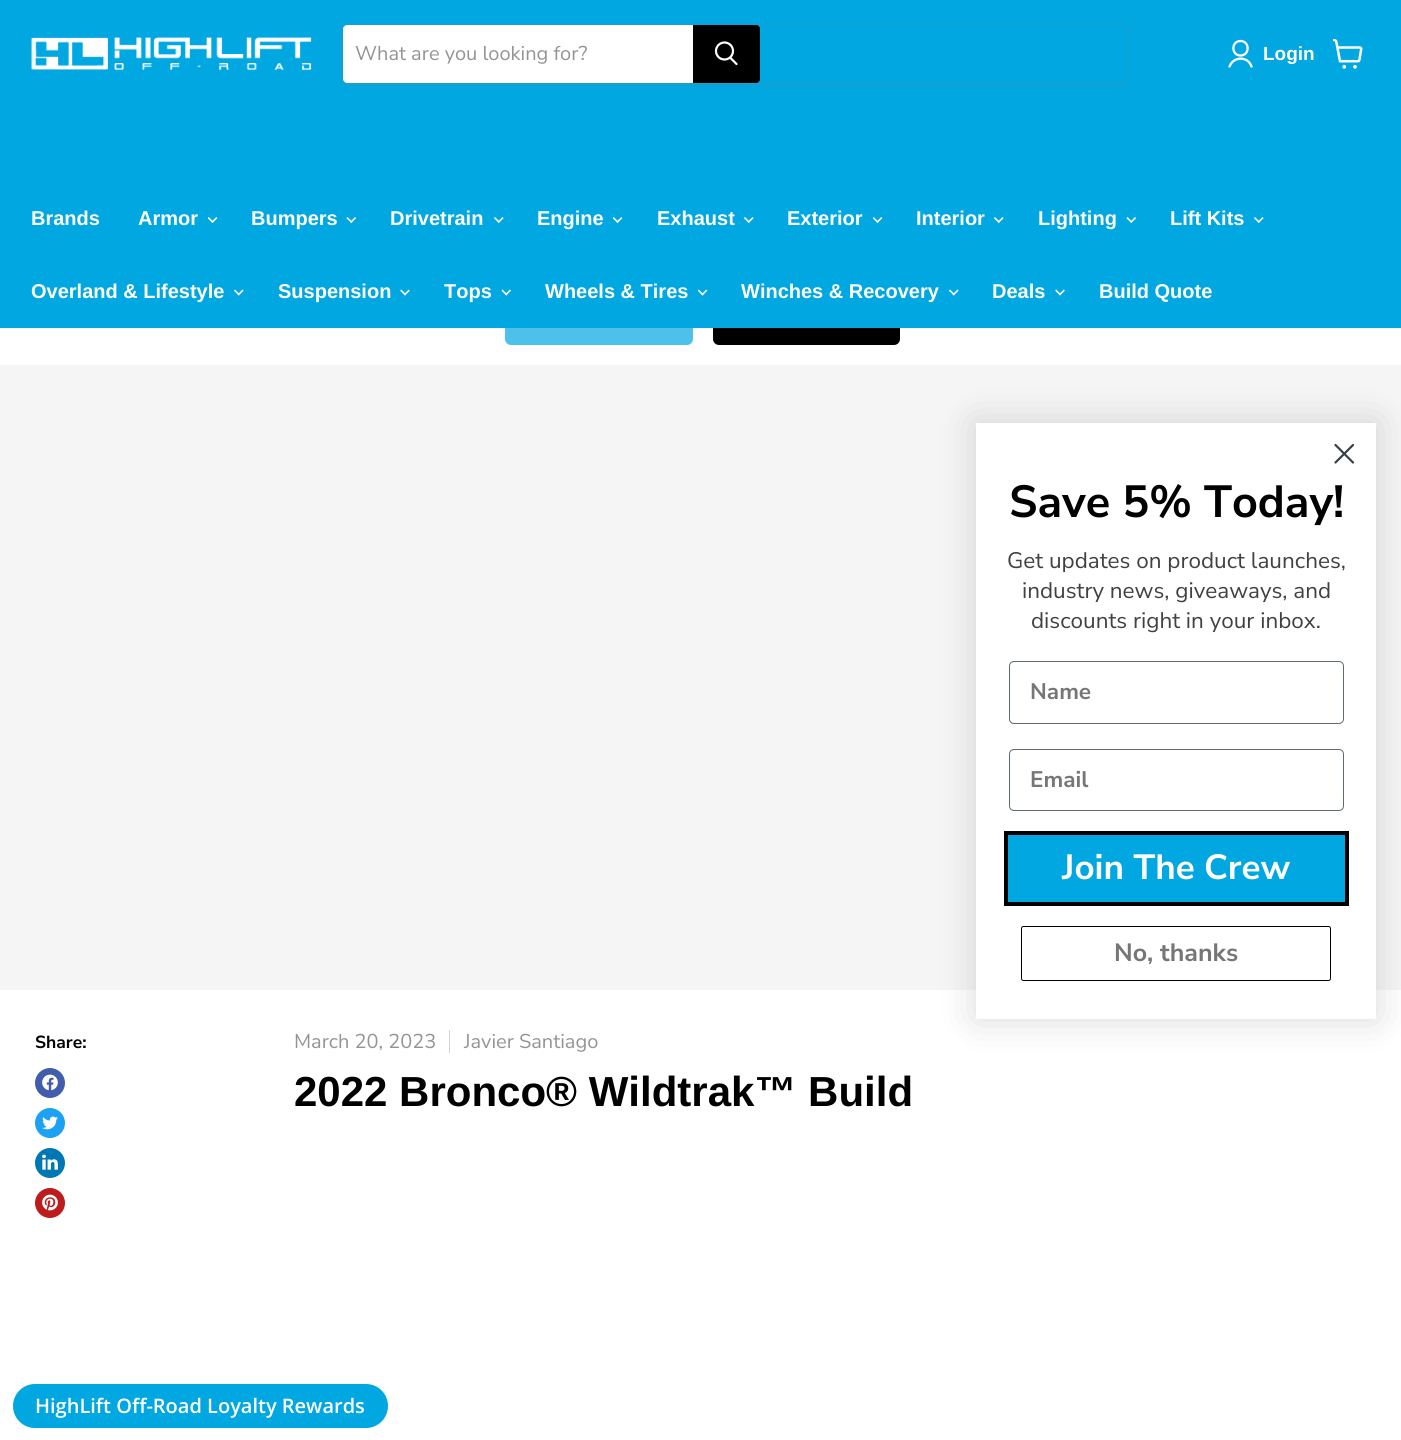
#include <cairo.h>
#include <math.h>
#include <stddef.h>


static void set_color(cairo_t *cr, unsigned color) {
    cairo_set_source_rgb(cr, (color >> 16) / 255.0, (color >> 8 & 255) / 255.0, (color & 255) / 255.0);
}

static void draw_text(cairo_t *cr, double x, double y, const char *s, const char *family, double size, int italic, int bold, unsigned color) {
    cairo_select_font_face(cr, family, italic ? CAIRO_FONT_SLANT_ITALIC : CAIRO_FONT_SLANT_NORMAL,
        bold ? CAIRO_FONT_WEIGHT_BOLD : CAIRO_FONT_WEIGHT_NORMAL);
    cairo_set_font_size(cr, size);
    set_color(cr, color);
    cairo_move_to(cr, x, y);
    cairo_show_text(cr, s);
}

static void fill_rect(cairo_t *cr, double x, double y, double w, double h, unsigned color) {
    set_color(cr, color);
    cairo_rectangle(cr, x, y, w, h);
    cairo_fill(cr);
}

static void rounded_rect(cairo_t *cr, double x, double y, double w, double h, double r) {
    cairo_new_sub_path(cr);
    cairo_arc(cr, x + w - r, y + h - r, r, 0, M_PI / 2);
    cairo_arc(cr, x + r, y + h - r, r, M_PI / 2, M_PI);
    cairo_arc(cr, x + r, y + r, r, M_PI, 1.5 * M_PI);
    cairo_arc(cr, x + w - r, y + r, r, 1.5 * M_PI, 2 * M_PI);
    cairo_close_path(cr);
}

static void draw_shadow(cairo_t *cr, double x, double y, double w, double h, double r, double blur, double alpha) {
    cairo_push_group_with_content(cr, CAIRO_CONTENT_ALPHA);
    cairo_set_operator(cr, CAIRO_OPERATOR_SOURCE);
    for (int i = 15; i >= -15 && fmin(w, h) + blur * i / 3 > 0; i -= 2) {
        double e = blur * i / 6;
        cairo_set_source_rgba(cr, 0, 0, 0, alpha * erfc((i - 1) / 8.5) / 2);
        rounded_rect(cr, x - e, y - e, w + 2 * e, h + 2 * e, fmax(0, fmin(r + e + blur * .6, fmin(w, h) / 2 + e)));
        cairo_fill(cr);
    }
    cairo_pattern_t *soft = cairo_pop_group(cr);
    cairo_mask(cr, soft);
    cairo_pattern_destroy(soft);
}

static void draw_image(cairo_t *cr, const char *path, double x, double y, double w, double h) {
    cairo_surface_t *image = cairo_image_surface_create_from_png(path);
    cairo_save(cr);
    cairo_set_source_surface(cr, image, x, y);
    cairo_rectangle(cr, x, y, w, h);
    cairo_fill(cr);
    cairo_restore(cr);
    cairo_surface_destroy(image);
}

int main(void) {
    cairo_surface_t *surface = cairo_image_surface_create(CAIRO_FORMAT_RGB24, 1401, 1440);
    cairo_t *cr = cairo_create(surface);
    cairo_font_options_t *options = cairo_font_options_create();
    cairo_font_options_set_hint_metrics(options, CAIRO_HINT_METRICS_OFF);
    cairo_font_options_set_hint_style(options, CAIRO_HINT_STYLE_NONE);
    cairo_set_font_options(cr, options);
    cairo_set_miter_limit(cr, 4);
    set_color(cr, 0xFFFFFF);
    cairo_paint(cr);
    set_color(cr, 0x4DC1EA);
    rounded_rect(cr, 505, 279, 188, 66, 6);
    cairo_fill(cr);
    set_color(cr, 0x000000);
    rounded_rect(cr, 713, 279, 187, 66, 6);
    cairo_fill(cr);
    fill_rect(cr, 0, 0, 1401, 328, 0x00A7E1);
    draw_image(cr, "assets/img1.png", 31, 37, 281, 34);
    cairo_save(cr);
    cairo_set_fill_rule(cr, CAIRO_FILL_RULE_EVEN_ODD);
    cairo_new_path(cr);
    cairo_move_to(cr, 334, 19);
    cairo_line_to(cr, 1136, 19);
    cairo_line_to(cr, 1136, 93);
    cairo_line_to(cr, 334, 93);
    cairo_close_path(cr);
    cairo_move_to(cr, 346, 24);
    cairo_line_to(cr, 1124, 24);
    cairo_curve_to(cr, 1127, 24, 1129, 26, 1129, 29);
    cairo_line_to(cr, 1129, 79);
    cairo_curve_to(cr, 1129, 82, 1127, 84, 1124, 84);
    cairo_line_to(cr, 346, 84);
    cairo_curve_to(cr, 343, 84, 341, 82, 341, 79);
    cairo_line_to(cr, 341, 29);
    cairo_curve_to(cr, 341, 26, 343, 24, 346, 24);
    cairo_close_path(cr);
    cairo_clip(cr);
    set_color(cr, 0x808080);
    draw_shadow(cr, 341, 26, 788, 60, 5, 2, 0.11);
    cairo_restore(cr);
    rounded_rect(cr, 341.5, 24.5, 787, 59, 4.5);
    cairo_set_source_rgba(cr, 0.502, 0.502, 0.502, 0.2);
    cairo_set_line_width(cr, 1);
    cairo_stroke(cr);
    set_color(cr, 0xFFFFFF);
    cairo_new_path(cr);
    cairo_move_to(cr, 347, 25);
    cairo_line_to(cr, 693, 25);
    cairo_line_to(cr, 693, 83);
    cairo_line_to(cr, 347, 83);
    cairo_curve_to(cr, 345, 83, 343, 81, 343, 79);
    cairo_line_to(cr, 343, 29);
    cairo_curve_to(cr, 343, 27, 345, 25, 347, 25);
    cairo_close_path(cr);
    cairo_fill(cr);
    draw_text(cr, 355, 60, "What are you looking for?", "Nunito Sans", 20, 0, 0, 0x949494);
    set_color(cr, 0x000000);
    cairo_new_path(cr);
    cairo_move_to(cr, 693.5, 25.5);
    cairo_line_to(cr, 756, 25.5);
    cairo_curve_to(cr, 758, 25.5, 759.5, 27, 759.5, 29);
    cairo_line_to(cr, 759.5, 79);
    cairo_curve_to(cr, 759.5, 81, 758, 82.5, 756, 82.5);
    cairo_line_to(cr, 693.5, 82.5);
    cairo_close_path(cr);
    cairo_fill_preserve(cr);
    cairo_stroke(cr);
    cairo_new_path(cr);
    cairo_move_to(cr, 736.5, 64);
    cairo_line_to(cr, 730.5, 58);
    set_color(cr, 0xFFFFFF);
    cairo_set_line_width(cr, 2.2);
    cairo_set_line_cap(cr, CAIRO_LINE_CAP_ROUND);
    cairo_stroke(cr);
    cairo_arc(cr, 724.5, 51, 8.5, 0, 2 * M_PI);
    cairo_set_line_cap(cr, CAIRO_LINE_CAP_BUTT);
    cairo_stroke(cr);
    cairo_new_path(cr);
    cairo_move_to(cr, 1240.5, 55.5);
    cairo_curve_to(cr, 1250, 55.5, 1250, 41, 1240.5, 41);
    cairo_curve_to(cr, 1231, 41, 1231, 55.5, 1240.5, 55.5);
    cairo_close_path(cr);
    cairo_move_to(cr, 1251.5, 66.5);
    cairo_curve_to(cr, 1248, 56, 1233.5, 56, 1229.5, 66.5);
    cairo_set_line_width(cr, 2.3);
    cairo_set_line_cap(cr, CAIRO_LINE_CAP_ROUND);
    cairo_set_line_join(cr, CAIRO_LINE_JOIN_ROUND);
    cairo_stroke(cr);
    draw_text(cr, 1263, 60, "Login", "Liberation Sans", 19, 0, 1, 0xFFFFFF);
    draw_image(cr, "assets/img2.png", 1333, 39, 30, 30);
    draw_text(cr, 31, 225, "Brands", "Liberation Sans", 20, 0, 1, 0xFFFFFF);
    draw_text(cr, 138, 225, "Armor", "Liberation Sans", 20, 0, 1, 0xFFFFFF);
    draw_image(cr, "assets/img3.png", 208, 217, 10, 6);
    draw_text(cr, 251, 225, "Bumpers", "Liberation Sans", 20, 0, 1, 0xFFFFFF);
    draw_image(cr, "assets/img4.png", 346, 217, 10, 6);
    draw_text(cr, 390, 225, "Drivetrain", "Liberation Sans", 20, 0, 1, 0xFFFFFF);
    draw_image(cr, "assets/img5.png", 494, 217, 10, 6);
    draw_text(cr, 537, 225, "Engine", "Liberation Sans", 20, 0, 1, 0xFFFFFF);
    draw_image(cr, "assets/img3.png", 613, 217, 10, 6);
    draw_text(cr, 657, 225, "Exhaust", "Liberation Sans", 20, 0, 1, 0xFFFFFF);
    draw_image(cr, "assets/img5.png", 744, 217, 10, 6);
    draw_text(cr, 787, 225, "Exterior", "Liberation Sans", 20, 0, 1, 0xFFFFFF);
    draw_image(cr, "assets/img3.png", 873, 217, 10, 6);
    draw_text(cr, 916, 225, "Interior", "Liberation Sans", 20, 0, 1, 0xFFFFFF);
    draw_image(cr, "assets/img5.png", 994, 217, 10, 6);
    draw_text(cr, 1038, 225, "Lighting", "Liberation Sans", 20, 0, 1, 0xFFFFFF);
    draw_image(cr, "assets/img4.png", 1126, 217, 10, 6);
    draw_text(cr, 1170, 225, "Lift Kits", "Liberation Sans", 20, 0, 1, 0xFFFFFF);
    draw_image(cr, "assets/img5.png", 1254, 217, 10, 6);
    draw_text(cr, 31, 298, "Overland & Lifestyle", "Liberation Sans", 20, 0, 1, 0xFFFFFF);
    draw_image(cr, "assets/img6.png", 234, 289, 10, 7);
    draw_text(cr, 278, 298, "Suspension", "Liberation Sans", 20, 0, 1, 0xFFFFFF);
    draw_image(cr, "assets/img7.png", 400, 289, 10, 7);
    draw_text(cr, 444, 298, "Tops", "Liberation Sans", 20, 0, 1, 0xFFFFFF);
    draw_image(cr, "assets/img8.png", 501, 289, 10, 7);
    draw_text(cr, 545, 298, "Wheels & Tires", "Liberation Sans", 20, 0, 1, 0xFFFFFF);
    draw_image(cr, "assets/img9.png", 698, 289, 10, 7);
    draw_text(cr, 741, 298, "Winches & Recovery", "Liberation Sans", 20, 0, 1, 0xFFFFFF);
    draw_image(cr, "assets/img6.png", 949, 289, 10, 7);
    draw_text(cr, 992, 298, "Deals", "Liberation Sans", 20, 0, 1, 0xFFFFFF);
    draw_image(cr, "assets/img7.png", 1055, 289, 10, 7);
    draw_text(cr, 1099, 298, "Build Quote", "Liberation Sans", 20, 0, 1, 0xFFFFFF);
    fill_rect(cr, 0, 365, 1401, 625, 0xF5F5F5);
    set_color(cr, 0x000000);
    draw_shadow(cr, 976, 423, 400, 596, 0, 19, 0.15);
    fill_rect(cr, 976, 423, 400, 596, 0xFFFFFF);
    cairo_new_path(cr);
    cairo_move_to(cr, 1335.5, 445);
    cairo_line_to(cr, 1353, 462.5);
    cairo_move_to(cr, 1335.5, 462.5);
    cairo_line_to(cr, 1353, 445);
    cairo_close_path(cr);
    set_color(cr, 0x373F47);
    cairo_set_line_width(cr, 2.2);
    cairo_stroke(cr);
    draw_text(cr, 1009, 517, "Save 5% Today!", "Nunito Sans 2", 45, 0, 1, 0x000000);
    draw_text(cr, 1007, 568, "Get updates on product launches,", "Nunito Sans 2", 22.5, 0, 0, 0x414141);
    draw_text(cr, 1022, 598, "industry news, giveaways, and", "Nunito Sans 2", 22.5, 0, 0, 0x414141);
    draw_text(cr, 1031, 628, "discounts right in your inbox.", "Nunito Sans 2", 22.5, 0, 0, 0x414141);
    rounded_rect(cr, 1009.5, 661.5, 334, 62, 4.5);
    set_color(cr, 0x606A72);
    cairo_set_line_width(cr, 1);
    cairo_set_line_cap(cr, CAIRO_LINE_CAP_BUTT);
    cairo_set_line_join(cr, CAIRO_LINE_JOIN_MITER);
    cairo_stroke(cr);
    draw_text(cr, 1030, 699, "Name", "Nunito Sans 2", 22.5, 0, 1, 0x767676);
    rounded_rect(cr, 1009.5, 749.5, 334, 61, 4.5);
    set_color(cr, 0x606A72);
    cairo_stroke(cr);
    draw_text(cr, 1030, 787, "Email", "Nunito Sans 2", 22.5, 0, 1, 0x767676);
    set_color(cr, 0x00A7E1);
    cairo_rectangle(cr, 1006, 833, 341, 71);
    cairo_fill_preserve(cr);
    set_color(cr, 0x050000);
    cairo_set_line_width(cr, 4);
    cairo_stroke(cr);
    draw_text(cr, 1062, 879, "Join The Crew", "Nunito Sans 2", 35, 0, 1, 0xFFFFFF);
    rounded_rect(cr, 1021.5, 926.5, 309, 54, 2);
    set_color(cr, 0x000000);
    cairo_set_line_width(cr, 1);
    cairo_stroke(cr);
    draw_text(cr, 1114, 961, "No, thanks", "Nunito Sans 2", 25, 0, 1, 0x767676);
    draw_text(cr, 35, 1048, "Share:", "Nunito Sans", 17.5, 0, 1, 0x000000);
    set_color(cr, 0x425DAB);
    cairo_new_path(cr);
    cairo_arc(cr, 50, 1083, 15, 0, 2 * M_PI);
    cairo_fill(cr);
    draw_image(cr, "assets/img10.png", 42, 1074, 16, 17);
    set_color(cr, 0x1DA1F2);
    cairo_arc(cr, 50, 1123, 15, 0, 2 * M_PI);
    cairo_fill(cr);
    draw_image(cr, "assets/img11.png", 42, 1116, 16, 14);
    set_color(cr, 0x0077B5);
    cairo_arc(cr, 50, 1163, 15, 0, 2 * M_PI);
    cairo_fill(cr);
    draw_image(cr, "assets/img12.png", 42, 1154, 16, 16);
    set_color(cr, 0xBD1C1C);
    cairo_arc(cr, 50, 1203, 15, 0, 2 * M_PI);
    cairo_fill(cr);
    draw_image(cr, "assets/img13.png", 42, 1194, 16, 17);
    draw_text(cr, 294, 1048, "March 20, 2023", "Nunito Sans", 20, 0, 0, 0x949494);
    fill_rect(cr, 449, 1030, 1, 23, 0xD3D3D3);
    draw_text(cr, 464, 1048, "Javier Santiago", "Nunito Sans", 20, 0, 0, 0x949494);
    draw_text(cr, 294, 1106, "2022 Bronco® Wildtrak™ Build", "Liberation Sans", 42, 0, 1, 0x000000);
    set_color(cr, 0x00A7E1);
    rounded_rect(cr, 13, 1384, 375, 44, 22);
    cairo_fill(cr);
    draw_text(cr, 35, 1413, "HighLift Off-Road Loyalty Rewards", "Open Sans SemiBold", 20, 0, 0, 0xFFFFFF);
    cairo_surface_write_to_png(surface, "output.png");
    cairo_font_options_destroy(options);
    cairo_destroy(cr);
    cairo_surface_destroy(surface);
    return 0;
}
